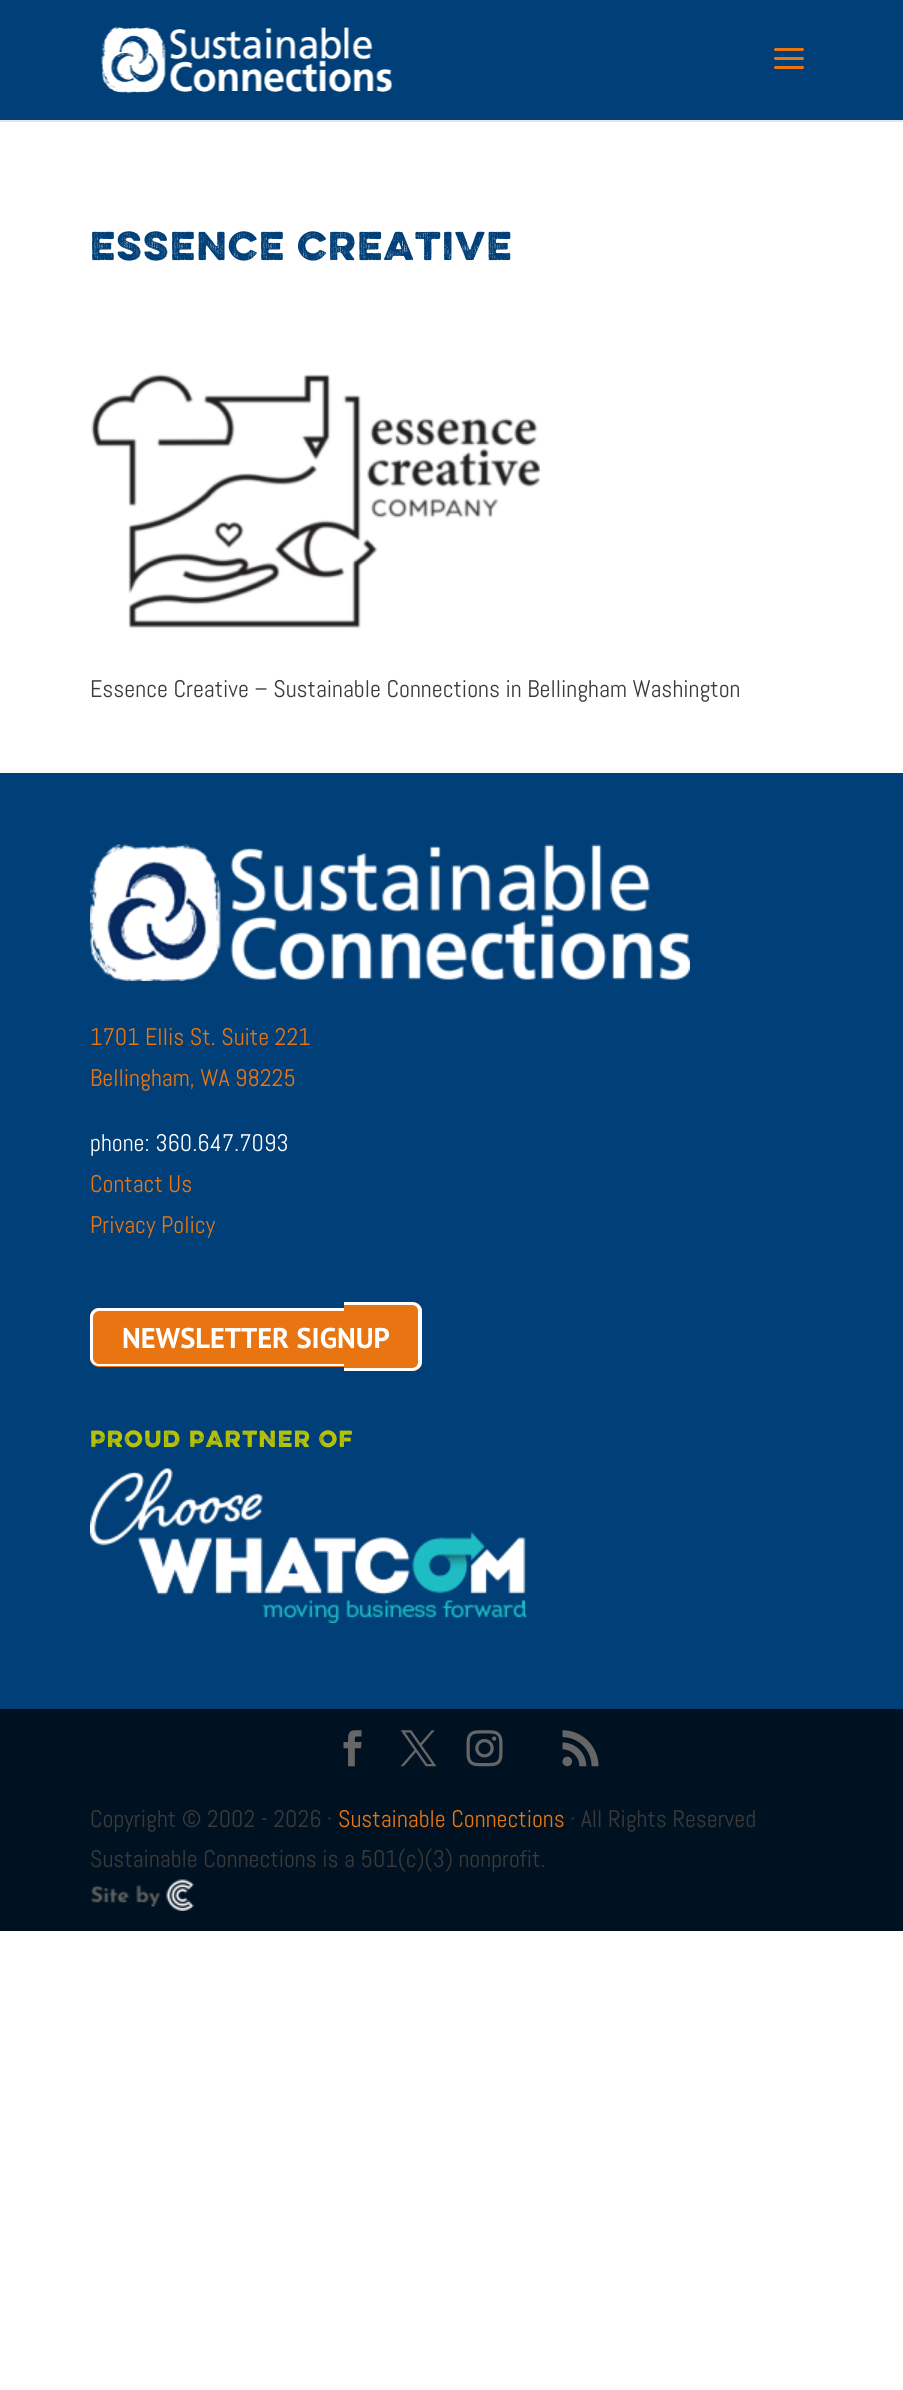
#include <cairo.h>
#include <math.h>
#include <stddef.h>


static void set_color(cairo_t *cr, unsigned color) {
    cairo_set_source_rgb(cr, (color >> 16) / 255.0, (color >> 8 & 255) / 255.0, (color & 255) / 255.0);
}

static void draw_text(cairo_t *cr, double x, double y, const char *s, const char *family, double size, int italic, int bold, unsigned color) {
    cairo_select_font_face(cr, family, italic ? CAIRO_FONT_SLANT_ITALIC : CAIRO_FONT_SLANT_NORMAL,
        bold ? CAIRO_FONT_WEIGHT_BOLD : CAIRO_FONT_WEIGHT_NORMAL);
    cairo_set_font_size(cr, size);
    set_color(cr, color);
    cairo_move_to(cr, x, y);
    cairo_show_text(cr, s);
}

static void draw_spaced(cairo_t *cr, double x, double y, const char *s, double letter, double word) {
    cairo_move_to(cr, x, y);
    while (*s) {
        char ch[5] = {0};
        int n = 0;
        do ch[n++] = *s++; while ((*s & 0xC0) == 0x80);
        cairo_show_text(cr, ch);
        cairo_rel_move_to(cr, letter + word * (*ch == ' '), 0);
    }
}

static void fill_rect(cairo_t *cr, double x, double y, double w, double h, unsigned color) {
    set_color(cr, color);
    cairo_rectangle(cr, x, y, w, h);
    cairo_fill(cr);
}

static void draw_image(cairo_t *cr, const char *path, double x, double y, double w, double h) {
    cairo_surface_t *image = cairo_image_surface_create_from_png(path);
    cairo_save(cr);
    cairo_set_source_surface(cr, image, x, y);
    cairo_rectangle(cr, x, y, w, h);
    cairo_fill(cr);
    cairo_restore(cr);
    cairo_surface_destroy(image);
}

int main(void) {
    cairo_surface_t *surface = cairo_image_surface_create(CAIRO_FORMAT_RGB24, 903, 2390);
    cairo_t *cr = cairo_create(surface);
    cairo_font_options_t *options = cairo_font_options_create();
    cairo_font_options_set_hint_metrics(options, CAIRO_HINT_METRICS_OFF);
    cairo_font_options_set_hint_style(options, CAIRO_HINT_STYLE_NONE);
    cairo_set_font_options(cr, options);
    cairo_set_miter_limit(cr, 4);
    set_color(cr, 0xFFFFFF);
    cairo_paint(cr);
    fill_rect(cr, 0, 120, 903, 2, 0xE6E6E6);
    fill_rect(cr, 0, 0, 903, 120, 0x003F77);
    draw_image(cr, "assets/img1.png", 101, 27, 292, 66);
    draw_image(cr, "assets/img2.png", 774, 48, 30, 21);
    cairo_select_font_face(cr, "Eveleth", CAIRO_FONT_SLANT_NORMAL, CAIRO_FONT_WEIGHT_BOLD);
    cairo_set_font_size(cr, 36);
    draw_spaced(cr, 90, 260, "ESSENCE CREATIVE", 1.5, 0);
    draw_image(cr, "assets/img3.png", 91, 374, 449, 255);
    draw_text(cr, 90, 697, "Essence Creative – Sustainable Connections in Bellingham Washington", "Abel", 24, 0, 0, 0x3A3A3A);
    fill_rect(cr, 0, 773, 903, 936, 0x003F77);
    draw_image(cr, "assets/img4.png", 90, 844, 600, 137);
    draw_text(cr, 90, 1045, "1701 Ellis St. Suite 221", "Abel", 24, 0, 0, 0xE87511);
    draw_text(cr, 90, 1086, "Bellingham, WA 98225", "Abel", 24, 0, 0, 0xE87511);
    draw_text(cr, 90, 1151, "phone: 360.647.7093", "Abel", 24, 0, 0, 0xFFFFFF);
    draw_text(cr, 90, 1192, "Contact Us", "Abel", 24, 0, 0, 0xE87511);
    draw_text(cr, 90, 1233, "Privacy Policy", "Abel", 24, 0, 0, 0xE87511);
    cairo_new_path(cr);
    cairo_move_to(cr, 99, 1308);
    cairo_line_to(cr, 390, 1308);
    cairo_line_to(cr, 390, 1367);
    cairo_line_to(cr, 99, 1367);
    cairo_curve_to(cr, 94, 1367, 90, 1363, 90, 1358);
    cairo_line_to(cr, 90, 1317);
    cairo_curve_to(cr, 90, 1312, 94, 1308, 99, 1308);
    cairo_close_path(cr);
    cairo_fill(cr);
    cairo_set_source_rgba(cr, 1, 1, 1, 0.99);
    cairo_set_fill_rule(cr, CAIRO_FILL_RULE_EVEN_ODD);
    cairo_new_path(cr);
    cairo_move_to(cr, 99, 1308);
    cairo_line_to(cr, 390, 1308);
    cairo_line_to(cr, 390, 1366);
    cairo_line_to(cr, 99, 1366);
    cairo_curve_to(cr, 94, 1366, 90, 1362, 90, 1358);
    cairo_line_to(cr, 90, 1317);
    cairo_curve_to(cr, 90, 1312, 94, 1308, 99, 1308);
    cairo_close_path(cr);
    cairo_move_to(cr, 99, 1311);
    cairo_line_to(cr, 390, 1311);
    cairo_line_to(cr, 390, 1364);
    cairo_line_to(cr, 99, 1364);
    cairo_curve_to(cr, 96, 1364, 93, 1361, 93, 1358);
    cairo_line_to(cr, 93, 1317);
    cairo_curve_to(cr, 93, 1314, 96, 1311, 99, 1311);
    cairo_close_path(cr);
    cairo_fill(cr);
    set_color(cr, 0xE87511);
    cairo_new_path(cr);
    cairo_move_to(cr, 344, 1302);
    cairo_line_to(cr, 413, 1302);
    cairo_curve_to(cr, 418, 1302, 422, 1306, 422, 1311);
    cairo_line_to(cr, 422, 1362);
    cairo_curve_to(cr, 422, 1367, 418, 1371, 413, 1371);
    cairo_line_to(cr, 344, 1371);
    cairo_close_path(cr);
    cairo_fill(cr);
    cairo_set_source_rgba(cr, 1, 1, 1, 0.99);
    cairo_new_path(cr);
    cairo_move_to(cr, 344, 1302);
    cairo_line_to(cr, 412, 1302);
    cairo_curve_to(cr, 417, 1302, 422, 1306, 422, 1311);
    cairo_line_to(cr, 422, 1362);
    cairo_curve_to(cr, 422, 1367, 417, 1371, 412, 1371);
    cairo_line_to(cr, 344, 1371);
    cairo_close_path(cr);
    cairo_move_to(cr, 344, 1305);
    cairo_line_to(cr, 412, 1305);
    cairo_curve_to(cr, 416, 1305, 418, 1308, 418, 1311);
    cairo_line_to(cr, 418, 1362);
    cairo_curve_to(cr, 418, 1365, 416, 1368, 412, 1368);
    cairo_line_to(cr, 344, 1368);
    cairo_close_path(cr);
    cairo_fill(cr);
    draw_text(cr, 122, 1348, "NEWSLETTER SIGNUP", "PT Sans", 28.5, 0, 1, 0xFFFFFF);
    cairo_select_font_face(cr, "Eveleth", CAIRO_FONT_SLANT_NORMAL, CAIRO_FONT_WEIGHT_BOLD);
    cairo_set_font_size(cr, 21);
    set_color(cr, 0xBAC405);
    draw_spaced(cr, 90, 1447, "PROUD PARTNER OF", 1.5, 0);
    draw_image(cr, "assets/img5.png", 90, 1468, 437, 155);
    fill_rect(cr, 0, 1709, 903, 222, 0x001221);
    draw_image(cr, "assets/img6.png", 343, 1730, 19, 37);
    draw_image(cr, "assets/img7.png", 400, 1730, 37, 37);
    draw_image(cr, "assets/img8.png", 466, 1730, 37, 37);
    draw_image(cr, "assets/img9.png", 562, 1730, 37, 37);
    draw_text(cr, 90, 1827, "Copyright © 2002 - 2026 ·", "Abel", 24, 0, 0, 0x3A3A3A);
    draw_text(cr, 338, 1827, "Sustainable Connections", "Abel", 24, 0, 0, 0xE87511);
    draw_text(cr, 570, 1827, "· All Rights Reserved", "Abel", 24, 0, 0, 0x3A3A3A);
    draw_text(cr, 90, 1867, "Sustainable Connections is a 501(c)(3) nonprofit.", "Abel", 24, 0, 0, 0x3A3A3A);
    draw_image(cr, "assets/img10.png", 91, 1879, 103, 32);
    cairo_surface_write_to_png(surface, "output.png");
    cairo_font_options_destroy(options);
    cairo_destroy(cr);
    cairo_surface_destroy(surface);
    return 0;
}
